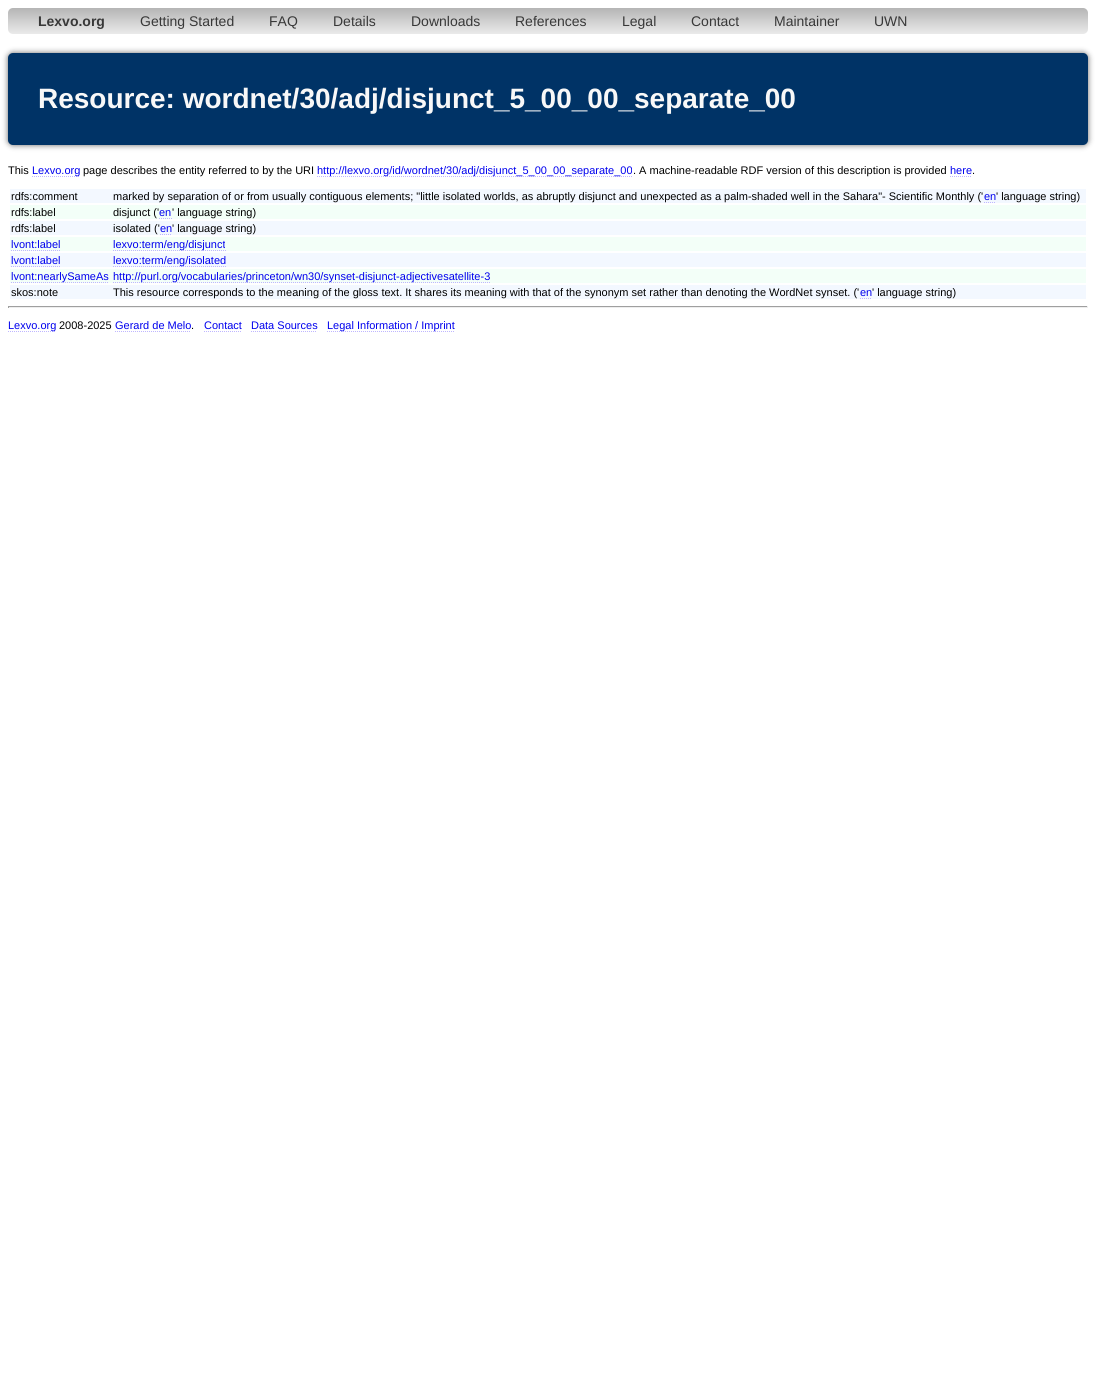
#include <cairo.h>
#include <math.h>
#include <stddef.h>


static void set_color(cairo_t *cr, unsigned color) {
    cairo_set_source_rgb(cr, (color >> 16) / 255.0, (color >> 8 & 255) / 255.0, (color & 255) / 255.0);
}

static void draw_text(cairo_t *cr, double x, double y, const char *s, const char *family, double size, int italic, int bold, unsigned color) {
    cairo_select_font_face(cr, family, italic ? CAIRO_FONT_SLANT_ITALIC : CAIRO_FONT_SLANT_NORMAL,
        bold ? CAIRO_FONT_WEIGHT_BOLD : CAIRO_FONT_WEIGHT_NORMAL);
    cairo_set_font_size(cr, size);
    set_color(cr, color);
    cairo_move_to(cr, x, y);
    cairo_show_text(cr, s);
}

static void fill_rect(cairo_t *cr, double x, double y, double w, double h, unsigned color) {
    set_color(cr, color);
    cairo_rectangle(cr, x, y, w, h);
    cairo_fill(cr);
}

static void rounded_rect(cairo_t *cr, double x, double y, double w, double h, double r) {
    cairo_new_sub_path(cr);
    cairo_arc(cr, x + w - r, y + h - r, r, 0, M_PI / 2);
    cairo_arc(cr, x + r, y + h - r, r, M_PI / 2, M_PI);
    cairo_arc(cr, x + r, y + r, r, M_PI, 1.5 * M_PI);
    cairo_arc(cr, x + w - r, y + r, r, 1.5 * M_PI, 2 * M_PI);
    cairo_close_path(cr);
}

static void draw_shadow(cairo_t *cr, double x, double y, double w, double h, double r, double blur, double alpha) {
    cairo_push_group_with_content(cr, CAIRO_CONTENT_ALPHA);
    cairo_set_operator(cr, CAIRO_OPERATOR_SOURCE);
    for (int i = 15; i >= -15 && fmin(w, h) + blur * i / 3 > 0; i -= 2) {
        double e = blur * i / 6;
        cairo_set_source_rgba(cr, 0, 0, 0, alpha * erfc((i - 1) / 8.5) / 2);
        rounded_rect(cr, x - e, y - e, w + 2 * e, h + 2 * e, fmax(0, fmin(r + e + blur * .6, fmin(w, h) / 2 + e)));
        cairo_fill(cr);
    }
    cairo_pattern_t *soft = cairo_pop_group(cr);
    cairo_mask(cr, soft);
    cairo_pattern_destroy(soft);
}

int main(void) {
    cairo_surface_t *surface = cairo_image_surface_create(CAIRO_FORMAT_RGB24, 1096, 1399);
    cairo_t *cr = cairo_create(surface);
    cairo_font_options_t *options = cairo_font_options_create();
    cairo_font_options_set_hint_metrics(options, CAIRO_HINT_METRICS_OFF);
    cairo_font_options_set_hint_style(options, CAIRO_HINT_STYLE_NONE);
    cairo_set_font_options(cr, options);
    cairo_set_miter_limit(cr, 4);
    cairo_pattern_t *gradient;
    set_color(cr, 0xFFFFFF);
    cairo_paint(cr);
    gradient = cairo_pattern_create_linear(548, 8, 548, 34);
    cairo_pattern_add_color_stop_rgba(gradient, 0, 0.71, 0.71, 0.71, 1);
    cairo_pattern_add_color_stop_rgba(gradient, 1, 0.918, 0.918, 0.918, 1);
    cairo_set_source(cr, gradient);
    cairo_pattern_destroy(gradient);
    rounded_rect(cr, 8, 8, 1080, 26, 5);
    cairo_fill(cr);
    draw_text(cr, 38, 26, "Lexvo.org", "Liberation Sans", 14, 0, 1, 0x383838);
    draw_text(cr, 140, 26, "Getting Started", "Liberation Sans", 14, 0, 0, 0x383838);
    draw_text(cr, 269, 26, "FAQ", "Liberation Sans", 14, 0, 0, 0x383838);
    draw_text(cr, 333, 26, "Details", "Liberation Sans", 14, 0, 0, 0x383838);
    draw_text(cr, 411, 26, "Downloads", "Liberation Sans", 14, 0, 0, 0x383838);
    draw_text(cr, 515, 26, "References", "Liberation Sans", 14, 0, 0, 0x383838);
    draw_text(cr, 622, 26, "Legal", "Liberation Sans", 14, 0, 0, 0x383838);
    draw_text(cr, 691, 26, "Contact", "Liberation Sans", 14, 0, 0, 0x383838);
    draw_text(cr, 774, 26, "Maintainer", "Liberation Sans", 14, 0, 0, 0x383838);
    draw_text(cr, 874, 26, "UWN", "Liberation Sans", 14, 0, 0, 0x383838);
    set_color(cr, 0x000000);
    draw_shadow(cr, 8, 53, 1080, 92, 5, 3, 0.6);
    set_color(cr, 0x003366);
    rounded_rect(cr, 8, 53, 1080, 92, 5);
    cairo_fill(cr);
    draw_text(cr, 38, 108, "Resource: wordnet/30/adj/disjunct_5_00_00_separate_00", "Liberation Sans", 28, 0, 1, 0xF8F8F8);
    draw_text(cr, 8, 174, "This", "Liberation Sans", 11, 0, 0, 0x000000);
    cairo_new_path(cr);
    cairo_move_to(cr, 32, 176.5);
    cairo_line_to(cr, 80, 176.5);
    set_color(cr, 0xBFB6FF);
    cairo_set_line_width(cr, 1);
    cairo_set_dash(cr, (double[]){1, 1}, 2, 0);
    cairo_stroke(cr);
    draw_text(cr, 32, 174, "Lexvo.org", "Liberation Sans", 11, 0, 0, 0x0000EE);
    draw_text(cr, 83, 174, "page describes the entity referred to by the URI", "Liberation Sans", 11, 0, 0, 0x000000);
    cairo_new_path(cr);
    cairo_move_to(cr, 317, 176.5);
    cairo_line_to(cr, 633, 176.5);
    set_color(cr, 0xBFB6FF);
    cairo_stroke(cr);
    draw_text(cr, 317, 174, "http://lexvo.org/id/wordnet/30/adj/disjunct_5_00_00_separate_00", "Liberation Sans", 11, 0, 0, 0x0000EE);
    draw_text(cr, 633, 174, ". A machine-readable RDF version of this description is provided", "Liberation Sans", 11, 0, 0, 0x000000);
    draw_text(cr, 950, 174, "here", "Liberation Sans", 11, 0, 0, 0x0000EE);
    cairo_new_path(cr);
    cairo_move_to(cr, 950, 176.5);
    cairo_line_to(cr, 972, 176.5);
    set_color(cr, 0xBFB6FF);
    cairo_stroke(cr);
    draw_text(cr, 972, 174, ".", "Liberation Sans", 11, 0, 0, 0x000000);
    fill_rect(cr, 10, 189, 1076, 14, 0xF3F8FF);
    draw_text(cr, 11, 200, "rdfs:comment", "Liberation Sans", 11, 0, 0, 0x000000);
    draw_text(cr, 113, 200, "marked by separation of or from usually contiguous elements; \"little isolated worlds, as abruptly disjunct and unexpected as a palm-shaded well in the Sahara\"- Scientific Monthly ('", "Liberation Sans", 11, 0, 0, 0x000000);
    draw_text(cr, 984, 200, "en", "Liberation Sans", 11, 0, 0, 0x0000EE);
    cairo_new_path(cr);
    cairo_move_to(cr, 984, 202.5);
    cairo_line_to(cr, 996, 202.5);
    set_color(cr, 0xBFB6FF);
    cairo_stroke(cr);
    draw_text(cr, 996, 200, "' language string)", "Liberation Sans", 11, 0, 0, 0x000000);
    fill_rect(cr, 10, 205, 1076, 14, 0xF3FFF8);
    draw_text(cr, 11, 216, "rdfs:label", "Liberation Sans", 11, 0, 0, 0x000000);
    draw_text(cr, 113, 216, "disjunct ('", "Liberation Sans", 11, 0, 0, 0x000000);
    draw_text(cr, 159, 216, "en", "Liberation Sans", 11, 0, 0, 0x0000EE);
    cairo_new_path(cr);
    cairo_move_to(cr, 159, 218.5);
    cairo_line_to(cr, 172, 218.5);
    set_color(cr, 0xBFB6FF);
    cairo_stroke(cr);
    draw_text(cr, 172, 216, "' language string)", "Liberation Sans", 11, 0, 0, 0x000000);
    fill_rect(cr, 10, 221, 1076, 14, 0xF3F8FF);
    draw_text(cr, 11, 232, "rdfs:label", "Liberation Sans", 11, 0, 0, 0x000000);
    draw_text(cr, 113, 232, "isolated ('", "Liberation Sans", 11, 0, 0, 0x000000);
    draw_text(cr, 160, 232, "en", "Liberation Sans", 11, 0, 0, 0x0000EE);
    cairo_new_path(cr);
    cairo_move_to(cr, 160, 234.5);
    cairo_line_to(cr, 172, 234.5);
    set_color(cr, 0xBFB6FF);
    cairo_stroke(cr);
    draw_text(cr, 172, 232, "' language string)", "Liberation Sans", 11, 0, 0, 0x000000);
    fill_rect(cr, 10, 237, 1076, 14, 0xF3FFF8);
    draw_text(cr, 11, 248, "lvont:label", "Liberation Sans", 11, 0, 0, 0x0000EE);
    cairo_new_path(cr);
    cairo_move_to(cr, 11, 250.5);
    cairo_line_to(cr, 61, 250.5);
    set_color(cr, 0xBFB6FF);
    cairo_stroke(cr);
    cairo_new_path(cr);
    cairo_move_to(cr, 113, 250.5);
    cairo_line_to(cr, 226, 250.5);
    cairo_stroke(cr);
    draw_text(cr, 113, 248, "lexvo:term/eng/disjunct", "Liberation Sans", 11, 0, 0, 0x0000EE);
    fill_rect(cr, 10, 253, 1076, 14, 0xF3F8FF);
    draw_text(cr, 11, 264, "lvont:label", "Liberation Sans", 11, 0, 0, 0x0000EE);
    cairo_new_path(cr);
    cairo_move_to(cr, 11, 266.5);
    cairo_line_to(cr, 61, 266.5);
    set_color(cr, 0xBFB6FF);
    cairo_stroke(cr);
    cairo_new_path(cr);
    cairo_move_to(cr, 113, 266.5);
    cairo_line_to(cr, 226, 266.5);
    cairo_stroke(cr);
    draw_text(cr, 113, 264, "lexvo:term/eng/isolated", "Liberation Sans", 11, 0, 0, 0x0000EE);
    fill_rect(cr, 10, 269, 1076, 14, 0xF3FFF8);
    cairo_new_path(cr);
    cairo_move_to(cr, 11, 282.5);
    cairo_line_to(cr, 109, 282.5);
    set_color(cr, 0xBFB6FF);
    cairo_stroke(cr);
    draw_text(cr, 11, 280, "lvont:nearlySameAs", "Liberation Sans", 11, 0, 0, 0x0000EE);
    cairo_new_path(cr);
    cairo_move_to(cr, 113, 282.5);
    cairo_line_to(cr, 491, 282.5);
    set_color(cr, 0xBFB6FF);
    cairo_stroke(cr);
    draw_text(cr, 113, 280, "http://purl.org/vocabularies/princeton/wn30/synset-disjunct-adjectivesatellite-3", "Liberation Sans", 11, 0, 0, 0x0000EE);
    fill_rect(cr, 10, 285, 1076, 14, 0xF3F8FF);
    draw_text(cr, 11, 296, "skos:note", "Liberation Sans", 11, 0, 0, 0x000000);
    draw_text(cr, 113, 296, "This resource corresponds to the meaning of the gloss text. It shares its meaning with that of the synonym set rather than denoting the WordNet synset. ('", "Liberation Sans", 11, 0, 0, 0x000000);
    draw_text(cr, 860, 296, "en", "Liberation Sans", 11, 0, 0, 0x0000EE);
    cairo_new_path(cr);
    cairo_move_to(cr, 860, 298.5);
    cairo_line_to(cr, 872, 298.5);
    set_color(cr, 0xBFB6FF);
    cairo_stroke(cr);
    draw_text(cr, 872, 296, "' language string)", "Liberation Sans", 11, 0, 0, 0x000000);
    fill_rect(cr, 8, 306, 1080, 1, 0x9F9F9F);
    fill_rect(cr, 1087, 306, 1, 2, 0xEEEEEE);
    fill_rect(cr, 8, 307, 1080, 1, 0xEEEEEE);
    fill_rect(cr, 8, 306, 1, 2, 0x9F9F9F);
    cairo_new_path(cr);
    cairo_move_to(cr, 8, 331.5);
    cairo_line_to(cr, 56, 331.5);
    set_color(cr, 0xBFB6FF);
    cairo_stroke(cr);
    draw_text(cr, 8, 329, "Lexvo.org", "Liberation Sans", 11, 0, 0, 0x0000EE);
    draw_text(cr, 59, 329, "2008-2025", "Liberation Sans", 11, 0, 0, 0x000000);
    draw_text(cr, 115, 329, "Gerard de Melo", "Liberation Sans", 11, 0, 0, 0x0000EE);
    cairo_new_path(cr);
    cairo_move_to(cr, 115, 331.5);
    cairo_line_to(cr, 191, 331.5);
    set_color(cr, 0xBFB6FF);
    cairo_stroke(cr);
    draw_text(cr, 191, 329, ".", "Liberation Sans", 11, 0, 0, 0x000000);
    draw_text(cr, 204, 329, "Contact", "Liberation Sans", 11, 0, 0, 0x0000EE);
    cairo_new_path(cr);
    cairo_move_to(cr, 204, 331.5);
    cairo_line_to(cr, 242, 331.5);
    set_color(cr, 0xBFB6FF);
    cairo_stroke(cr);
    draw_text(cr, 251, 329, "Data Sources", "Liberation Sans", 11, 0, 0, 0x0000EE);
    cairo_new_path(cr);
    cairo_move_to(cr, 251, 331.5);
    cairo_line_to(cr, 317, 331.5);
    set_color(cr, 0xBFB6FF);
    cairo_stroke(cr);
    cairo_new_path(cr);
    cairo_move_to(cr, 327, 331.5);
    cairo_line_to(cr, 454, 331.5);
    cairo_stroke(cr);
    draw_text(cr, 327, 329, "Legal Information / Imprint", "Liberation Sans", 11, 0, 0, 0x0000EE);
    cairo_surface_write_to_png(surface, "output.png");
    cairo_font_options_destroy(options);
    cairo_destroy(cr);
    cairo_surface_destroy(surface);
    return 0;
}
